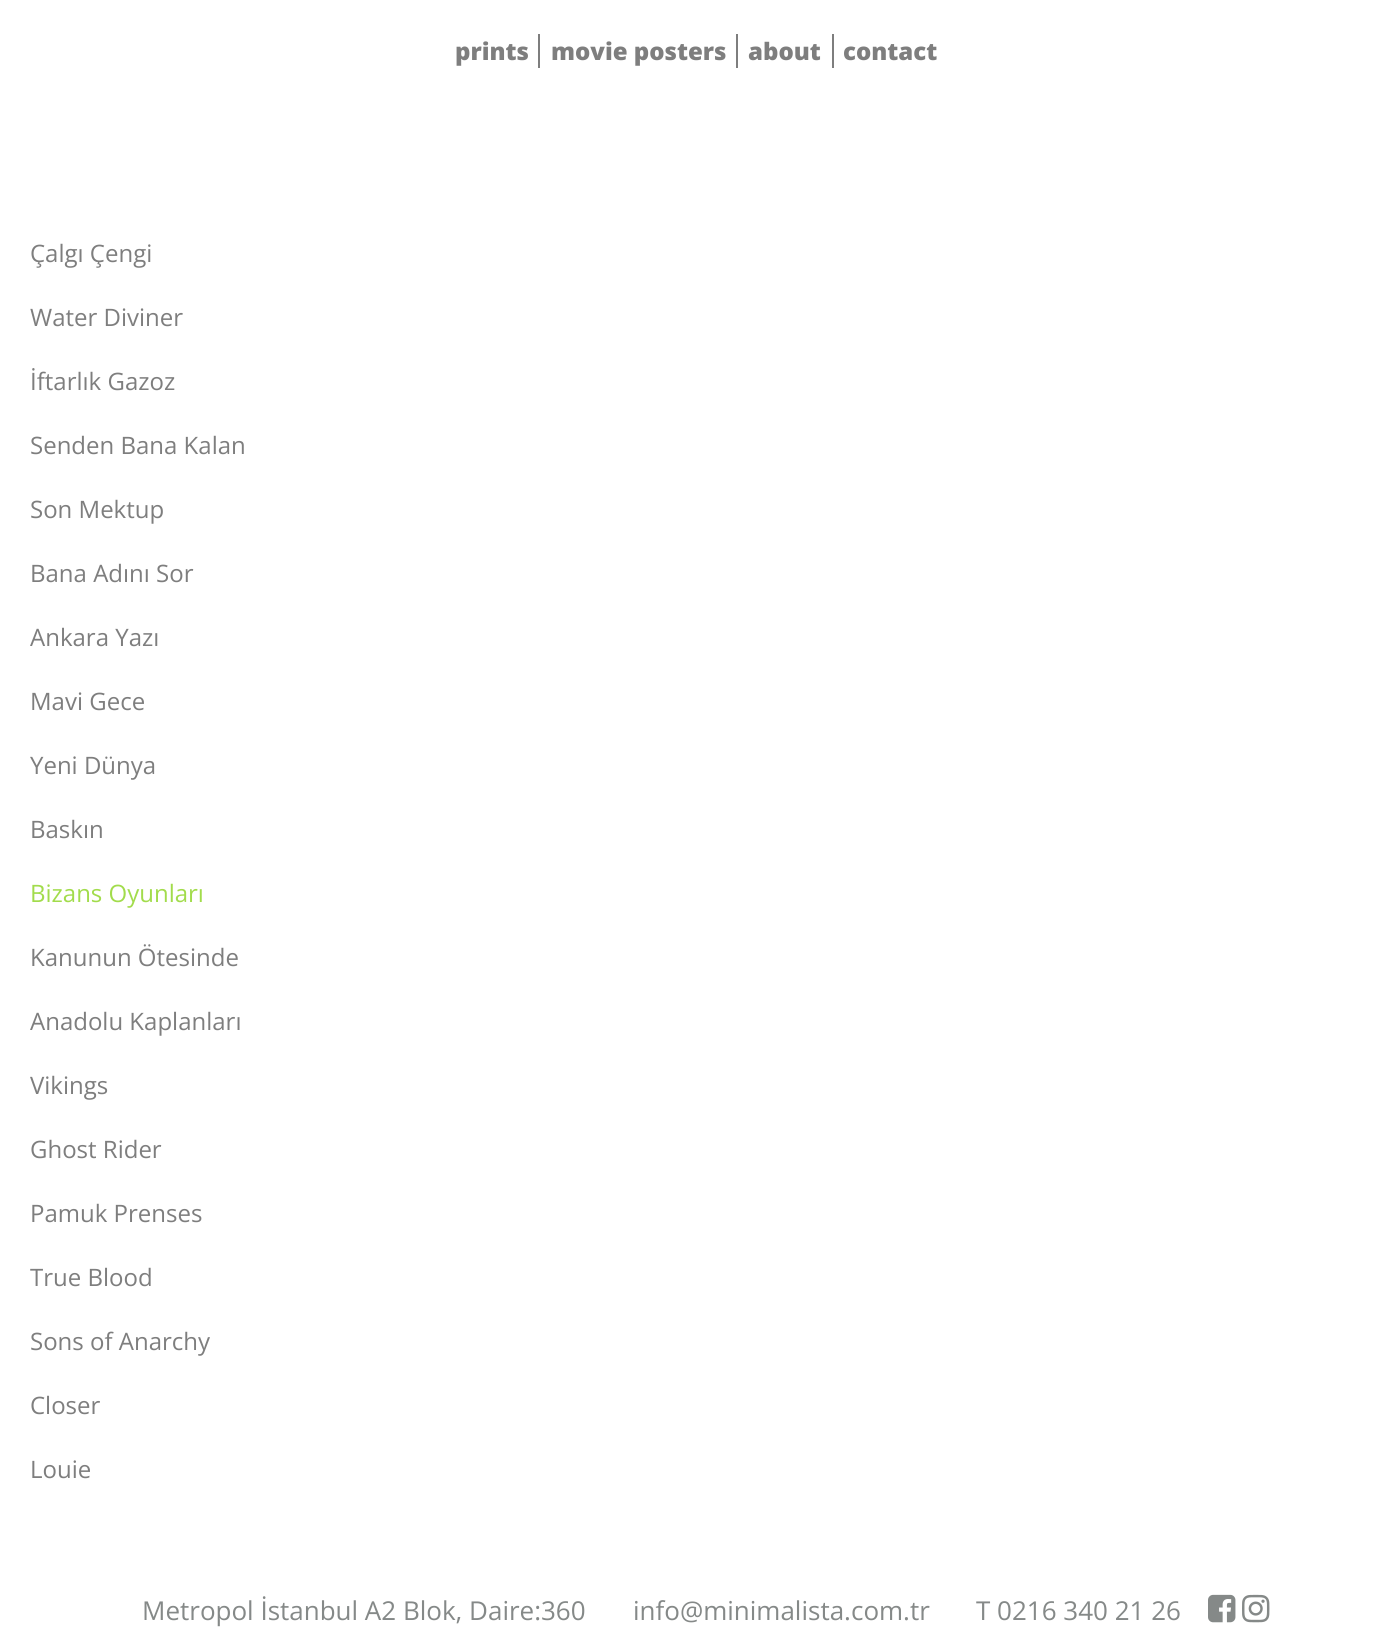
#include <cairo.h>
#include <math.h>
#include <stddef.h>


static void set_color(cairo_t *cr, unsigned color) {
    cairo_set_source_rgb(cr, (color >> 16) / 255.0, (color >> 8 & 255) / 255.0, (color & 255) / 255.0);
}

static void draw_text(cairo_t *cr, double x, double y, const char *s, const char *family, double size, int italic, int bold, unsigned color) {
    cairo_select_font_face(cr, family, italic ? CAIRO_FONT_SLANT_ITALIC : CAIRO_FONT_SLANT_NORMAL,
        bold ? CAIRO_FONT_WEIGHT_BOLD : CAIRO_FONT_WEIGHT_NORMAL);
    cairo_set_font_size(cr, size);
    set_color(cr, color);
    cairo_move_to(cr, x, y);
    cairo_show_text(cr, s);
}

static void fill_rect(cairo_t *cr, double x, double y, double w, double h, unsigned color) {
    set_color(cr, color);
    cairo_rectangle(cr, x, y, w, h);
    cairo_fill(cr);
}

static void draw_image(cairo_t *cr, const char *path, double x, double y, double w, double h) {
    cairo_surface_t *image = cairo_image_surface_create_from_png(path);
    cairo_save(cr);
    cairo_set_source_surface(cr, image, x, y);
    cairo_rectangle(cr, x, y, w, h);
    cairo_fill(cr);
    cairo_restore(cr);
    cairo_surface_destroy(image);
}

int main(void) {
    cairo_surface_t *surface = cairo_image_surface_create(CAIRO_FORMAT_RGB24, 1391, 1649);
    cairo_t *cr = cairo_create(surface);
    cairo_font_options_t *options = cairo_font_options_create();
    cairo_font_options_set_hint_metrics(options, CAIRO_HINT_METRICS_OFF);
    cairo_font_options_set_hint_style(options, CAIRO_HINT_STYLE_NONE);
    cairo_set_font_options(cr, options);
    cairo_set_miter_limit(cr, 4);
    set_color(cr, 0xFFFFFF);
    cairo_paint(cr);
    draw_text(cr, 455, 60, "prints", "Open Sans ExtraBold", 24, 0, 0, 0x7E7E7E);
    fill_rect(cr, 538, 34, 2, 34, 0x7E7E7E);
    draw_text(cr, 551, 60, "movie posters", "Open Sans ExtraBold", 24, 0, 0, 0x7E7E7E);
    fill_rect(cr, 736, 34, 2, 34, 0x7E7E7E);
    draw_text(cr, 748, 60, "about", "Open Sans ExtraBold", 24, 0, 0, 0x7E7E7E);
    fill_rect(cr, 832, 34, 2, 34, 0x7E7E7E);
    draw_text(cr, 843, 60, "contact", "Open Sans ExtraBold", 24, 0, 0, 0x7E7E7E);
    draw_text(cr, 30, 262, "Çalgı Çengi", "Open Sans", 24, 0, 0, 0x7E7E7E);
    draw_text(cr, 30, 326, "Water Diviner", "Open Sans", 24, 0, 0, 0x7E7E7E);
    draw_text(cr, 30, 390, "İftarlık Gazoz", "Open Sans", 24, 0, 0, 0x7E7E7E);
    draw_text(cr, 30, 454, "Senden Bana Kalan", "Open Sans", 24, 0, 0, 0x7E7E7E);
    draw_text(cr, 30, 518, "Son Mektup", "Open Sans", 24, 0, 0, 0x7E7E7E);
    draw_text(cr, 30, 582, "Bana Adını Sor", "Open Sans", 24, 0, 0, 0x7E7E7E);
    draw_text(cr, 30, 646, "Ankara Yazı", "Open Sans", 24, 0, 0, 0x7E7E7E);
    draw_text(cr, 30, 710, "Mavi Gece", "Open Sans", 24, 0, 0, 0x7E7E7E);
    draw_text(cr, 30, 774, "Yeni Dünya", "Open Sans", 24, 0, 0, 0x7E7E7E);
    draw_text(cr, 30, 838, "Baskın", "Open Sans", 24, 0, 0, 0x7E7E7E);
    draw_text(cr, 30, 902, "Bizans Oyunları", "Open Sans", 24, 0, 0, 0xA2DC4C);
    draw_text(cr, 30, 966, "Kanunun Ötesinde", "Open Sans", 24, 0, 0, 0x7E7E7E);
    draw_text(cr, 30, 1030, "Anadolu Kaplanları", "Open Sans", 24, 0, 0, 0x7E7E7E);
    draw_text(cr, 30, 1094, "Vikings", "Open Sans", 24, 0, 0, 0x7E7E7E);
    draw_text(cr, 30, 1158, "Ghost Rider", "Open Sans", 24, 0, 0, 0x7E7E7E);
    draw_text(cr, 30, 1222, "Pamuk Prenses", "Open Sans", 24, 0, 0, 0x7E7E7E);
    draw_text(cr, 30, 1286, "True Blood", "Open Sans", 24, 0, 0, 0x7E7E7E);
    draw_text(cr, 30, 1350, "Sons of Anarchy", "Open Sans", 24, 0, 0, 0x7E7E7E);
    draw_text(cr, 30, 1414, "Closer", "Open Sans", 24, 0, 0, 0x7E7E7E);
    draw_text(cr, 30, 1478, "Louie", "Open Sans", 24, 0, 0, 0x7E7E7E);
    draw_text(cr, 142, 1620, "Metropol İstanbul A2 Blok, Daire:360", "Open Sans", 26, 0, 0, 0x858988);
    draw_text(cr, 633, 1620, "info@minimalista.com.tr", "Open Sans", 26, 0, 0, 0x858988);
    draw_text(cr, 976, 1620, "T 0216 340 21 26", "Open Sans", 26, 0, 0, 0x858988);
    draw_image(cr, "assets/img1.png", 1208, 1594, 28, 29);
    draw_image(cr, "assets/img2.png", 1242, 1594, 28, 29);
    cairo_surface_write_to_png(surface, "output.png");
    cairo_font_options_destroy(options);
    cairo_destroy(cr);
    cairo_surface_destroy(surface);
    return 0;
}
